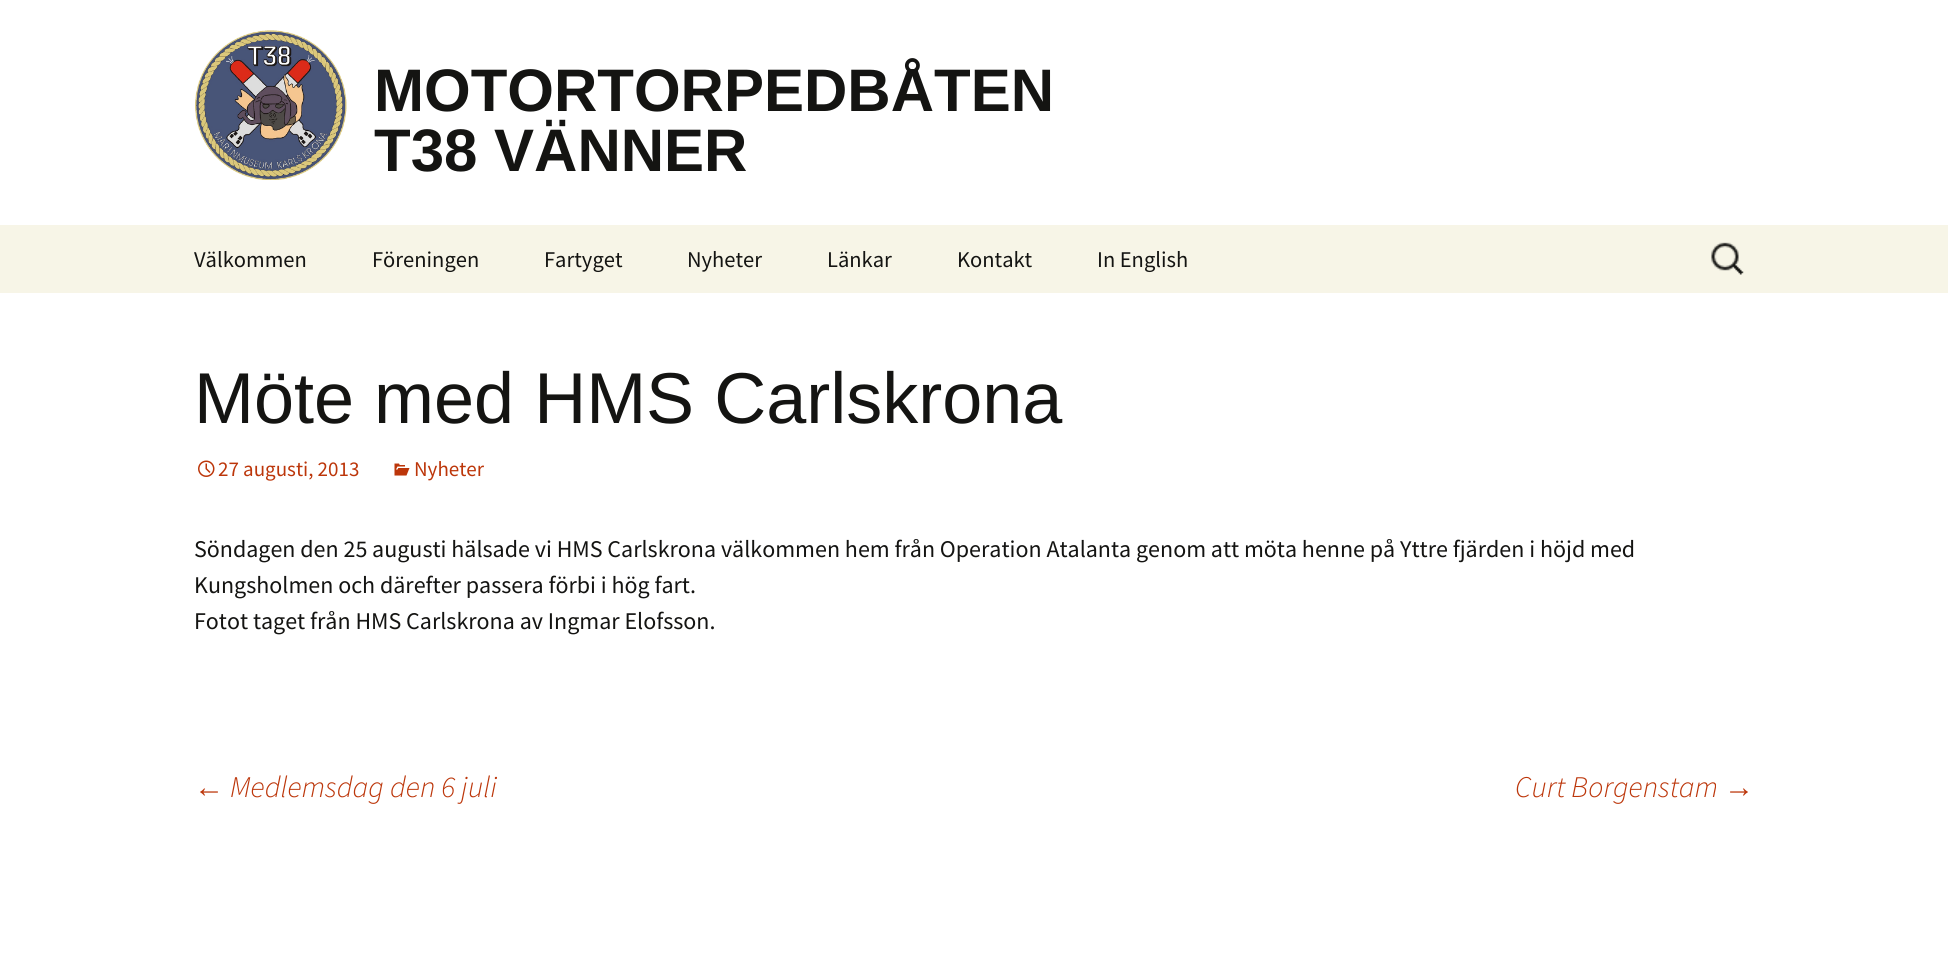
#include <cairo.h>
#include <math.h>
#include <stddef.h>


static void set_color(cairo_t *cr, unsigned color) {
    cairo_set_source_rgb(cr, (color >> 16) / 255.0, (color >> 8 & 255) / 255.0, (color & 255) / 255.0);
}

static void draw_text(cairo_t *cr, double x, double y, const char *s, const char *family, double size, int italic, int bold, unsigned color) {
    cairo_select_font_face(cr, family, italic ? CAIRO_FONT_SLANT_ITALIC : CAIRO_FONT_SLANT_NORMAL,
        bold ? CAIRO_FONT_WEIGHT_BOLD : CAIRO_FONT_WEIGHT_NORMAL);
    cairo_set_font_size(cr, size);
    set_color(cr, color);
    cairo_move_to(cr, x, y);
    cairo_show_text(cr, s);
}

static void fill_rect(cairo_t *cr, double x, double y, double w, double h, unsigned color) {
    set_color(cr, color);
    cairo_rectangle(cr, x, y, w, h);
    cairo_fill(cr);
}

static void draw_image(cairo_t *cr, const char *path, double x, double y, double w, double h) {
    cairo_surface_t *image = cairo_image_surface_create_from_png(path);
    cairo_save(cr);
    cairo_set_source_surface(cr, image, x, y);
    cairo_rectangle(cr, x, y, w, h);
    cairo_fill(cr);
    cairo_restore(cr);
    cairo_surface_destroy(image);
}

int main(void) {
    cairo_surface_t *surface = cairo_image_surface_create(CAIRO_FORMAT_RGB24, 1948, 956);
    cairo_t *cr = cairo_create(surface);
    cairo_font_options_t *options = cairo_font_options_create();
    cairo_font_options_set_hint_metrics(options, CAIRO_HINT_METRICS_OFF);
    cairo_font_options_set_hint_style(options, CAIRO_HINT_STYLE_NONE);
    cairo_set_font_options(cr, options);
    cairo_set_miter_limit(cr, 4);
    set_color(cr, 0xFFFFFF);
    cairo_paint(cr);
    draw_image(cr, "assets/img1.png", 195, 30, 152, 150);
    draw_text(cr, 374, 111, "MOTORTORPEDBÅTEN", "Liberation Sans", 60, 0, 1, 0x141412);
    draw_text(cr, 374, 171, "T38 VÄNNER", "Liberation Sans", 60, 0, 1, 0x141412);
    fill_rect(cr, 0, 225, 1948, 68, 0xF7F5E7);
    draw_text(cr, 194, 267, "Välkommen", "Source Sans Pro", 22.5, 0, 0, 0x141412);
    draw_text(cr, 372, 267, "Föreningen", "Source Sans Pro", 22.5, 0, 0, 0x141412);
    draw_text(cr, 544, 267, "Fartyget", "Source Sans Pro", 22.5, 0, 0, 0x141412);
    draw_text(cr, 687, 267, "Nyheter", "Source Sans Pro", 22.5, 0, 0, 0x141412);
    draw_text(cr, 827, 267, "Länkar", "Source Sans Pro", 22.5, 0, 0, 0x141412);
    draw_text(cr, 957, 267, "Kontakt", "Source Sans Pro", 22.5, 0, 0, 0x141412);
    draw_text(cr, 1097, 267, "In English", "Source Sans Pro", 22.5, 0, 0, 0x141412);
    draw_image(cr, "assets/img2.png", 1711, 242, 33, 33);
    draw_text(cr, 194, 423, "Möte med HMS Carlskrona", "Liberation Sans", 72, 0, 0, 0x141412);
    draw_image(cr, "assets/img3.png", 198, 460, 17, 17);
    draw_text(cr, 218, 476, "27 augusti, 2013", "Source Sans Pro", 21, 0, 0, 0xBC360A);
    draw_image(cr, "assets/img4.png", 394, 463, 16, 13);
    draw_text(cr, 414, 476, "Nyheter", "Source Sans Pro", 21, 0, 0, 0xBC360A);
    draw_text(cr, 194, 557, "Söndagen den 25 augusti hälsade vi HMS Carlskrona välkommen hem från Operation Atalanta genom att möta henne på Yttre fjärden i höjd med", "Source Sans Pro", 24, 0, 0, 0x141412);
    draw_text(cr, 194, 593, "Kungsholmen och därefter passera förbi i hög fart.", "Source Sans Pro", 24, 0, 0, 0x141412);
    draw_text(cr, 194, 629, "Fotot taget från HMS Carlskrona av Ingmar Elofsson.", "Source Sans Pro", 24, 0, 0, 0x141412);
    draw_text(cr, 194, 797, "←", "Liberation Sans", 30, 1, 0, 0xBC360A);
    draw_text(cr, 230, 797, "Medlemsdag den 6 juli", "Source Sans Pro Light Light", 30, 1, 0, 0xBC360A);
    draw_text(cr, 1515, 797, "Curt Borgenstam", "Source Sans Pro Light Light", 30, 1, 0, 0xBC360A);
    draw_text(cr, 1724, 797, "→", "Liberation Sans", 30, 1, 0, 0xBC360A);
    cairo_surface_write_to_png(surface, "output.png");
    cairo_font_options_destroy(options);
    cairo_destroy(cr);
    cairo_surface_destroy(surface);
    return 0;
}
